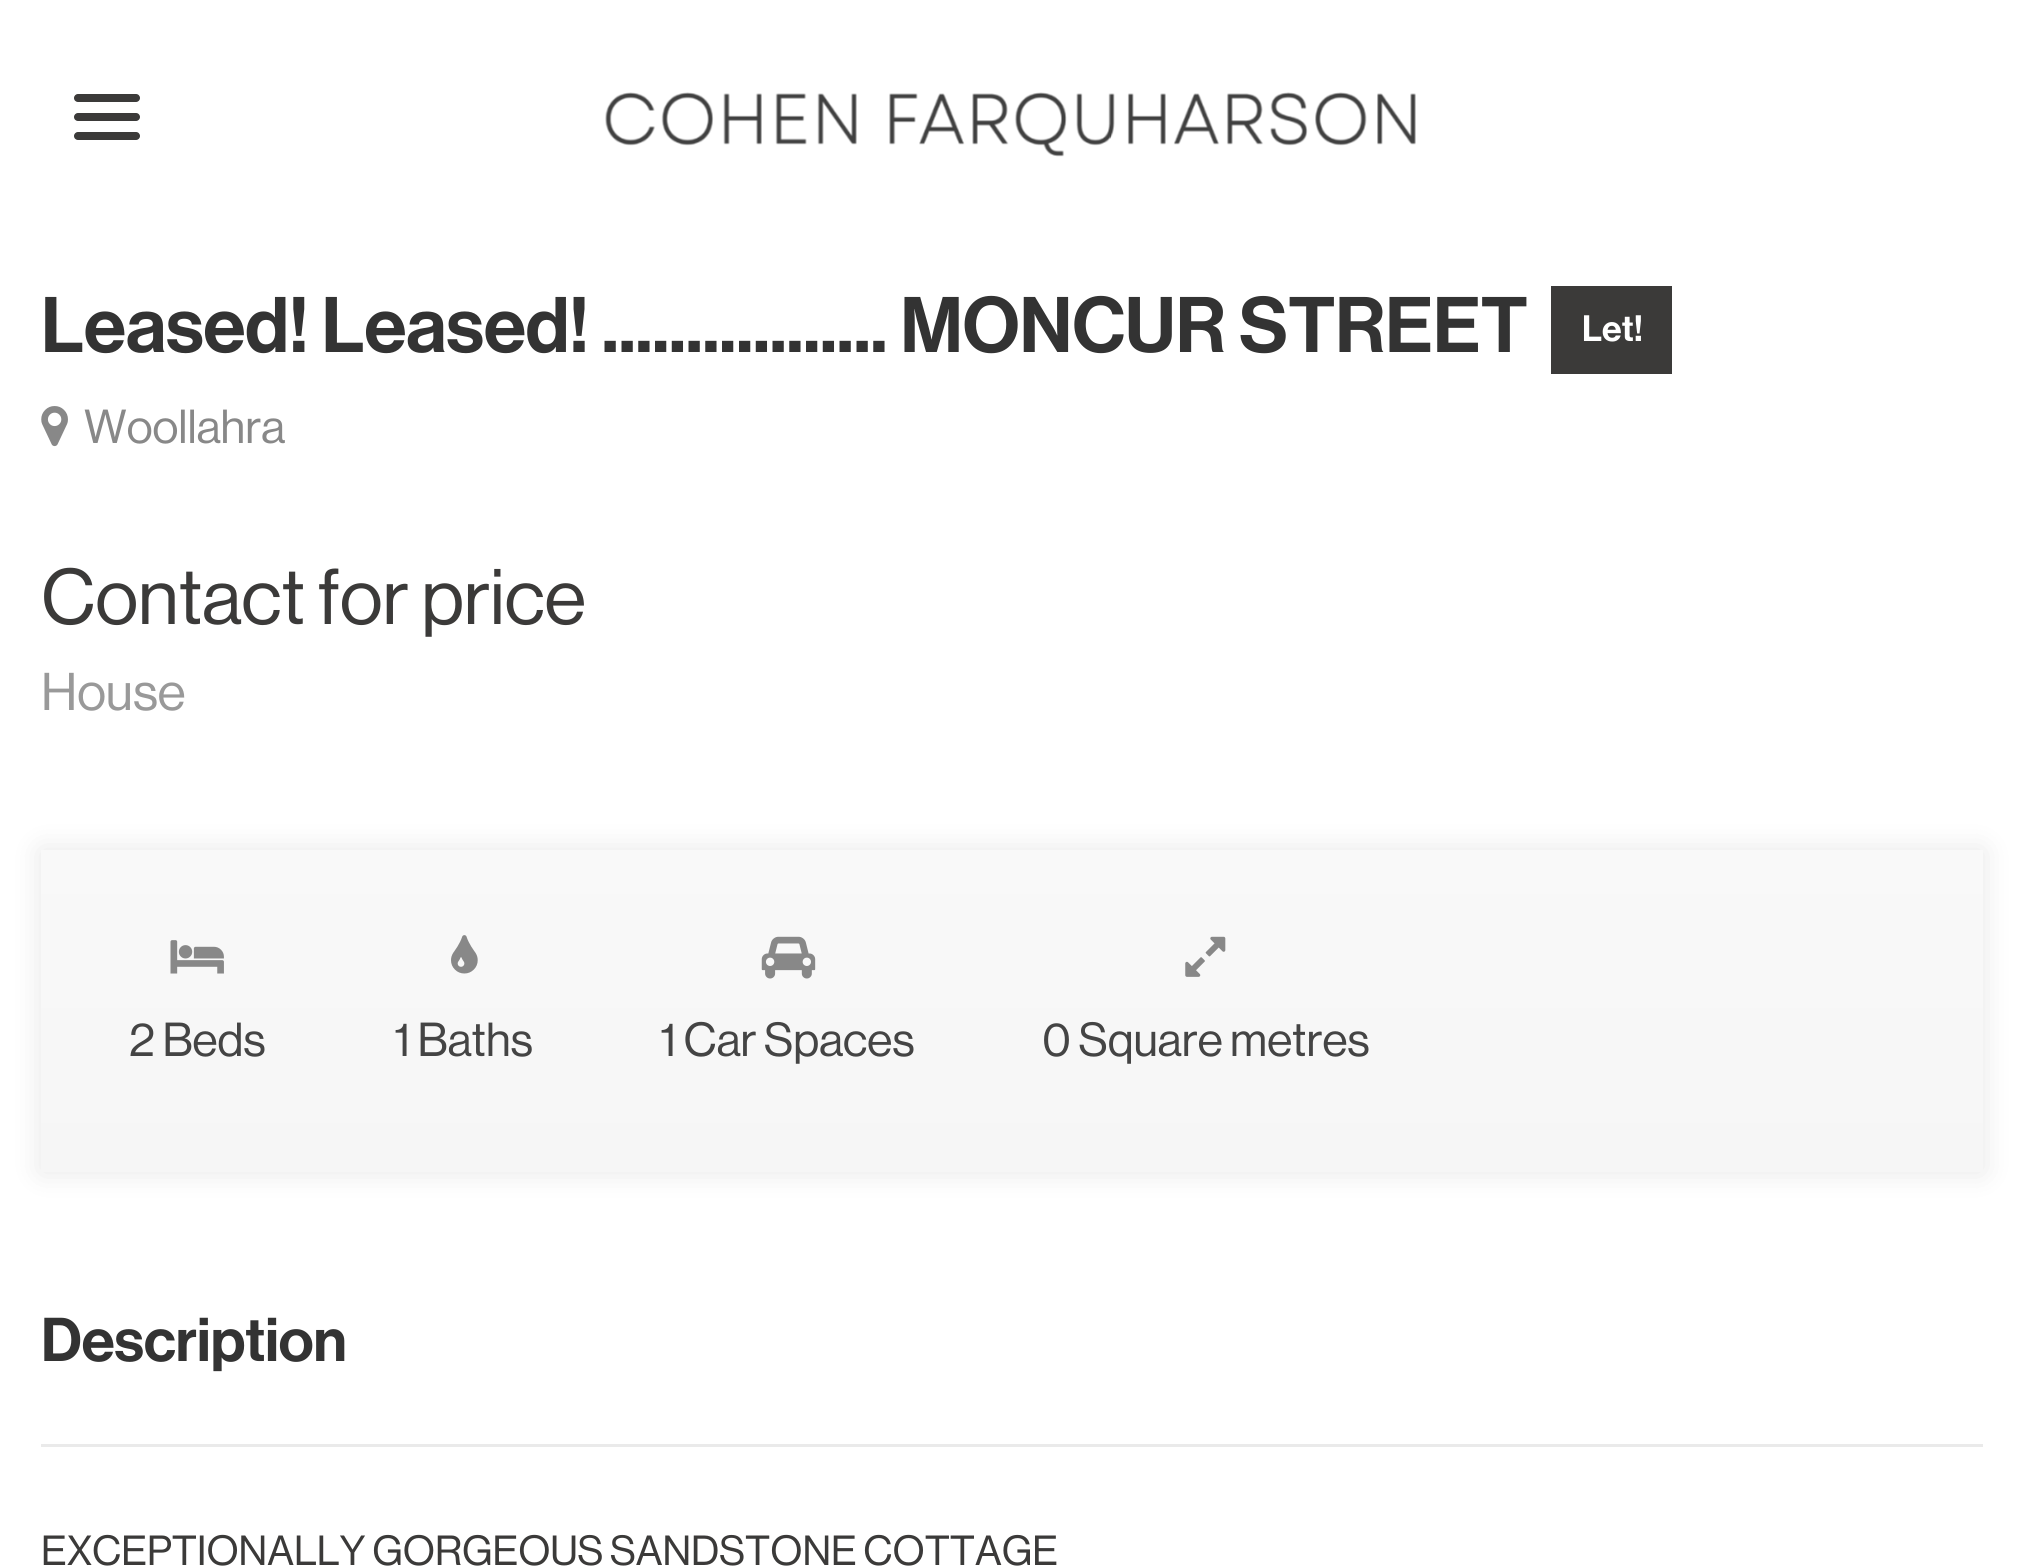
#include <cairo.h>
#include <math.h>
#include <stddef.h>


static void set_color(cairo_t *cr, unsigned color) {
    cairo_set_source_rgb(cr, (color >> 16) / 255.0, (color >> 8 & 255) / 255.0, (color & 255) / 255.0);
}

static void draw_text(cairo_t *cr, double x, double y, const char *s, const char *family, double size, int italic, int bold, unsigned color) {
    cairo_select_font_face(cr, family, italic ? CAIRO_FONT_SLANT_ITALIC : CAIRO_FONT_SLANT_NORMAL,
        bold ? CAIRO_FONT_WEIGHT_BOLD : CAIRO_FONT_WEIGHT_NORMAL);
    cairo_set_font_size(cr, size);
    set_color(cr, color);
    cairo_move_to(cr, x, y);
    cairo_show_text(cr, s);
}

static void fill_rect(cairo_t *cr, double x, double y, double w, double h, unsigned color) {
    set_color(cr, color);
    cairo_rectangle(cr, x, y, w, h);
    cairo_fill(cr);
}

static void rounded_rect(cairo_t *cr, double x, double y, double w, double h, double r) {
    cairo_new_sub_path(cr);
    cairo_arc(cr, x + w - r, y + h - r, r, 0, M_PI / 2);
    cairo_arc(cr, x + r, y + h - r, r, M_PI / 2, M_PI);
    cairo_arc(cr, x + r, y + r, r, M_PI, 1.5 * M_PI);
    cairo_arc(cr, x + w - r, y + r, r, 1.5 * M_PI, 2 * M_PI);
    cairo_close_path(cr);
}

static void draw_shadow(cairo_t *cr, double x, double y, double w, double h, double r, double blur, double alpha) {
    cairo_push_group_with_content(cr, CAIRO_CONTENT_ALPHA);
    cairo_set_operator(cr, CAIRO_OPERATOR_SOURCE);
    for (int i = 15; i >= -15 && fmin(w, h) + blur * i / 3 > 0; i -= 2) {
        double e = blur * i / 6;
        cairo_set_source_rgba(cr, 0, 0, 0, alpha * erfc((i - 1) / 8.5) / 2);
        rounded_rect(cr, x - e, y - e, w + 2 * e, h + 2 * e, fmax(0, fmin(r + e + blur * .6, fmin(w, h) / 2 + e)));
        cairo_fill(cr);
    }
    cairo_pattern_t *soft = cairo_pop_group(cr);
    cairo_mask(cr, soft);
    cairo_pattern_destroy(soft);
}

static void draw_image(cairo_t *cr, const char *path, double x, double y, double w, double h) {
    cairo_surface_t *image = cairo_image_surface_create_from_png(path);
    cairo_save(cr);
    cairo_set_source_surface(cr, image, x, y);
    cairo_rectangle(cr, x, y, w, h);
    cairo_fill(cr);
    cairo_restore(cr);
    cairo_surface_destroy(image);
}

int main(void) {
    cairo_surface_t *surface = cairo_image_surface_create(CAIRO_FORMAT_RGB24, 2022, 1567);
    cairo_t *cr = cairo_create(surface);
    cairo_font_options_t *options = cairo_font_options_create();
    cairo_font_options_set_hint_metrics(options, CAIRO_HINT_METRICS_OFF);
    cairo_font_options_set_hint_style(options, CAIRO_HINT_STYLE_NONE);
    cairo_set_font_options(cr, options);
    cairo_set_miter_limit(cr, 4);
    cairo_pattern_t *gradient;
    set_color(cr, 0xFFFFFF);
    cairo_paint(cr);
    set_color(cr, 0x3B3A39);
    rounded_rect(cr, 74, 132, 66, 8, 4);
    cairo_fill(cr);
    rounded_rect(cr, 74, 94, 66, 8, 4);
    cairo_fill(cr);
    rounded_rect(cr, 74, 113, 66, 8, 4);
    cairo_fill(cr);
    draw_image(cr, "assets/img1.png", 605, 92, 811, 65);
    draw_text(cr, 41, 352, "Leased! Leased! ................. MONCUR STREET", "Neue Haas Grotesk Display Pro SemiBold", 77, 0, 0, 0x333333);
    fill_rect(cr, 1551, 286, 121, 88, 0x3B3A39);
    draw_text(cr, 1582, 341, "Let!", "Neue Haas Grotesk Display Pro SemiBold", 36, 0, 0, 0xFFFFFF);
    draw_image(cr, "assets/img2.png", 41, 406, 27, 41);
    draw_text(cr, 84, 443, "Woollahra", "Neue Haas Grotesk Display Pro", 46.75, 0, 0, 0x888888);
    draw_text(cr, 41, 624, "Contact for price", "Neue Haas Grotesk Display Pro", 77, 0, 0, 0x3B3A39);
    draw_text(cr, 41, 710, "House", "Neue Haas Grotesk Display Pro", 52, 0, 0, 0x999999);
    set_color(cr, 0x000000);
    draw_shadow(cr, 41, 850, 1942, 322, 0, 14, 0.1);
    gradient = cairo_pattern_create_linear(1012, 850, 1012, 1172);
    cairo_pattern_add_color_stop_rgba(gradient, 0, 0.976, 0.976, 0.976, 1);
    cairo_pattern_add_color_stop_rgba(gradient, 1, 0.965, 0.965, 0.965, 1);
    cairo_set_source(cr, gradient);
    cairo_pattern_destroy(gradient);
    cairo_rectangle(cr, 41, 850, 1942, 322);
    cairo_fill(cr);
    draw_image(cr, "assets/img3.png", 170, 940, 54, 34);
    draw_text(cr, 129, 1056, "2 Beds", "Neue Haas Grotesk Display Pro", 46.75, 0, 0, 0x444444);
    draw_image(cr, "assets/img4.png", 451, 935, 27, 39);
    draw_text(cr, 394, 1056, "1 Baths", "Neue Haas Grotesk Display Pro", 46.75, 0, 0, 0x444444);
    draw_image(cr, "assets/img5.png", 761, 936, 55, 43);
    draw_text(cr, 660, 1056, "1 Car Spaces", "Neue Haas Grotesk Display Pro", 46.75, 0, 0, 0x444444);
    draw_image(cr, "assets/img6.png", 1185, 936, 41, 41);
    draw_text(cr, 1042, 1056, "0 Square metres", "Neue Haas Grotesk Display Pro", 46.75, 0, 0, 0x444444);
    fill_rect(cr, 41, 1444, 1942, 3, 0xEAEAEA);
    draw_text(cr, 41, 1361, "Description", "Neue Haas Grotesk Display Pro SemiBold", 60.5, 0, 0, 0x333333);
    draw_text(cr, 41, 1565, "EXCEPTIONALLY GORGEOUS SANDSTONE COTTAGE", "Neue Haas Grotesk Display Pro", 41.25, 0, 0, 0x3B3A39);
    cairo_surface_write_to_png(surface, "output.png");
    cairo_font_options_destroy(options);
    cairo_destroy(cr);
    cairo_surface_destroy(surface);
    return 0;
}
